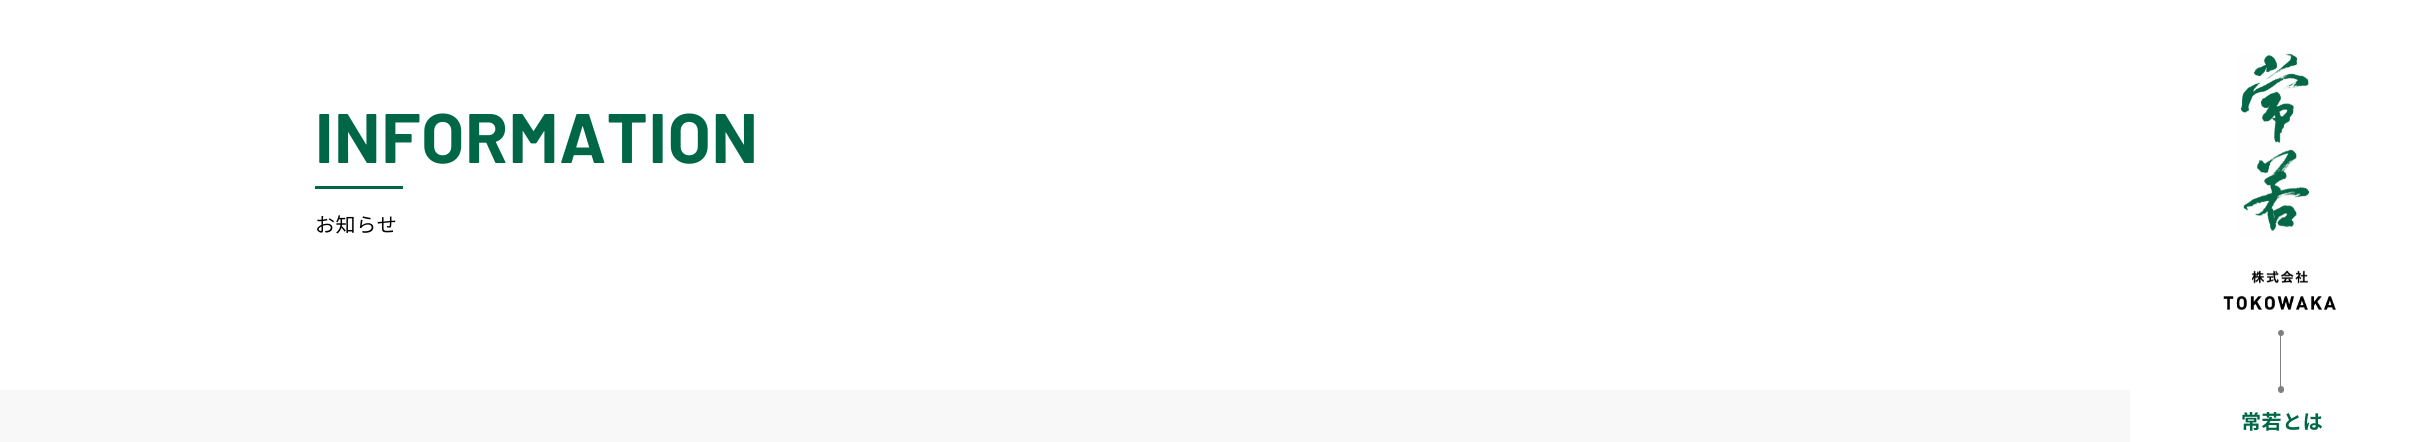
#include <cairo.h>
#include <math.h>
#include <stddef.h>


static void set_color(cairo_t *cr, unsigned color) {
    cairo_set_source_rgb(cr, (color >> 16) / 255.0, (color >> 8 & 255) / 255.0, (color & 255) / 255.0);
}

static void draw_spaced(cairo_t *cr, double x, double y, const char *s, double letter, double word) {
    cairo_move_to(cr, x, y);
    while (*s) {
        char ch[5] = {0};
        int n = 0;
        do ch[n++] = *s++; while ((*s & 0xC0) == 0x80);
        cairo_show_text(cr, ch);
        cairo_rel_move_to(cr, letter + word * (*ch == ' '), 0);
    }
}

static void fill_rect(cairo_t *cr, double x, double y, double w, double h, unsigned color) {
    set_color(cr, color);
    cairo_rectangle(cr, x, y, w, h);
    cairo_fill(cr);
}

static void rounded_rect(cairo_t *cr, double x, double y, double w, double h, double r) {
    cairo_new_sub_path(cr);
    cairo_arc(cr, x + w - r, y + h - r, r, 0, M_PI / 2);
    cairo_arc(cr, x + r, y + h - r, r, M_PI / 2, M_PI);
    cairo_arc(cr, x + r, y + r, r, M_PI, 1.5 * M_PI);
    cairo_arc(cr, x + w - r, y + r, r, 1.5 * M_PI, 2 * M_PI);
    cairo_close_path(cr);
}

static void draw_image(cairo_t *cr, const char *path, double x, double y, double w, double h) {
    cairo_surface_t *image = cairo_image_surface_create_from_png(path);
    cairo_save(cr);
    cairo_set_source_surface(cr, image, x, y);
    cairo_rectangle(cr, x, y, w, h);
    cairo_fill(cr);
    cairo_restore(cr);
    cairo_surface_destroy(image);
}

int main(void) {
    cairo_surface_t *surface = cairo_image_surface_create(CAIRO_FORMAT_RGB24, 2430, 442);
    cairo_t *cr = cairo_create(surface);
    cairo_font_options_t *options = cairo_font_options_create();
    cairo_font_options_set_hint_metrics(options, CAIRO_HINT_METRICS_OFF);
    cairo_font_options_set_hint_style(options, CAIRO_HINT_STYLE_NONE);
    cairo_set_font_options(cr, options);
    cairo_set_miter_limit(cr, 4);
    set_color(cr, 0xFFFFFF);
    cairo_paint(cr);
    cairo_select_font_face(cr, "Barlow", CAIRO_FONT_SLANT_NORMAL, CAIRO_FONT_WEIGHT_BOLD);
    cairo_set_font_size(cr, 70);
    set_color(cr, 0x006746);
    draw_spaced(cr, 315, 163, "INFORMATION", 0.6, 0);
    fill_rect(cr, 315, 186, 88, 3, 0x006746);
    cairo_select_font_face(cr, "Noto Sans JP", CAIRO_FONT_SLANT_NORMAL, CAIRO_FONT_WEIGHT_NORMAL);
    cairo_set_font_size(cr, 20);
    set_color(cr, 0x000000);
    draw_spaced(cr, 315, 232, "お知らせ", 0.6, 0);
    fill_rect(cr, 0, 390, 2130, 52, 0xF8F8F8);
    draw_image(cr, "assets/img1.png", 2223, 53, 113, 257);
    fill_rect(cr, 2280, 330, 1, 63, 0x808080);
    cairo_arc(cr, 2281, 333, 3, 0, 2 * M_PI);
    cairo_fill(cr);
    rounded_rect(cr, 2278, 386, 6, 7, 3);
    cairo_fill(cr);
    cairo_select_font_face(cr, "Noto Sans JP", CAIRO_FONT_SLANT_NORMAL, CAIRO_FONT_WEIGHT_BOLD);
    set_color(cr, 0x006746);
    draw_spaced(cr, 2241, 429, "常若とは", 0.6, 0);
    cairo_surface_write_to_png(surface, "output.png");
    cairo_font_options_destroy(options);
    cairo_destroy(cr);
    cairo_surface_destroy(surface);
    return 0;
}
